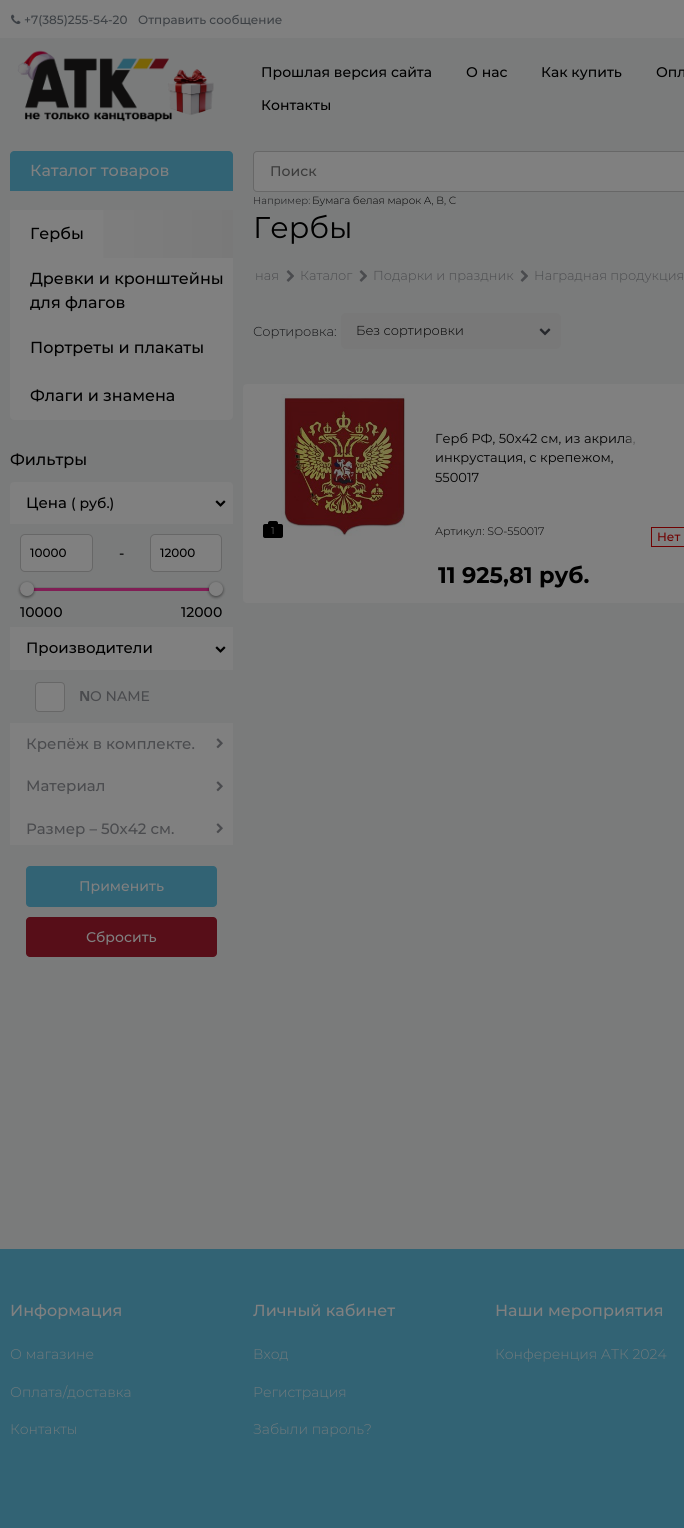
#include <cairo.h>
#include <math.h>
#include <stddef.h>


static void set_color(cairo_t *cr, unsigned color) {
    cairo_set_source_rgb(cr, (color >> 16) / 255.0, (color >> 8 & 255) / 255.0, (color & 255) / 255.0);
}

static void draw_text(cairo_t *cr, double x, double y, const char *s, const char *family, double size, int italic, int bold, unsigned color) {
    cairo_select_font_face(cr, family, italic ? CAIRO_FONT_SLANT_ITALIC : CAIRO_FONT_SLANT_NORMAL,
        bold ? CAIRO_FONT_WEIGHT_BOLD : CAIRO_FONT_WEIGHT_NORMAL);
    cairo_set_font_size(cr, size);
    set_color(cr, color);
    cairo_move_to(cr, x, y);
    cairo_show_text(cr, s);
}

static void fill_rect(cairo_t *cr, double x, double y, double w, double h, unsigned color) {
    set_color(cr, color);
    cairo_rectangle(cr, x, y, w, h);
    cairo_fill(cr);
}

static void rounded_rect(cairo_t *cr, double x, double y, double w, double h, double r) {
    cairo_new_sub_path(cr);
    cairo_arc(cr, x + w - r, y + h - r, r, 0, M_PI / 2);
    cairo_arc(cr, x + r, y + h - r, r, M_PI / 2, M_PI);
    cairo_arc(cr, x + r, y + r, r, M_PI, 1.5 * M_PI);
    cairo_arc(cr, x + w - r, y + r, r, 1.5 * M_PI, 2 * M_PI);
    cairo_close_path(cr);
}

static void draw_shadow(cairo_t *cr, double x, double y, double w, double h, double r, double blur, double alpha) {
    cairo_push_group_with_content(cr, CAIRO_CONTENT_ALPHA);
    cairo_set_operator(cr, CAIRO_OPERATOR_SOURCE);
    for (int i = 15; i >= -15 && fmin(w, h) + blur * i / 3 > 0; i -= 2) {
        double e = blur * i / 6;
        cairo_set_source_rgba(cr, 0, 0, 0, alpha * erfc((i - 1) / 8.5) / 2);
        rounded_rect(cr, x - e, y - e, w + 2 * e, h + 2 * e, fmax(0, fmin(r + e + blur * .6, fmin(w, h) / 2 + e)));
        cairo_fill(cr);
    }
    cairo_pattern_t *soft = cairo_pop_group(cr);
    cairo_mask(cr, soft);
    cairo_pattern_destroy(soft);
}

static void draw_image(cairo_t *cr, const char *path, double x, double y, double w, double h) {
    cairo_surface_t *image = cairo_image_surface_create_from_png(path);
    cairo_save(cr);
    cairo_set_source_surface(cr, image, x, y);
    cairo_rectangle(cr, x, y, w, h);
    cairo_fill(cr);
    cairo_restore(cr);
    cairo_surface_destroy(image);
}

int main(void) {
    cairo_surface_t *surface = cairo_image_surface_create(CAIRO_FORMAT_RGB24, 684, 1528);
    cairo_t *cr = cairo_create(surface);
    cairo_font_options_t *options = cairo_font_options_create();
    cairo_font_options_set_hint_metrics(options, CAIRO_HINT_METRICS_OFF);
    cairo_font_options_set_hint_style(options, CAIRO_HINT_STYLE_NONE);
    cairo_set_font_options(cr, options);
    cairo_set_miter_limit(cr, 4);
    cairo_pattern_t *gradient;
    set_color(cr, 0x7A7B7B);
    cairo_paint(cr);
    fill_rect(cr, 0, 0, 684, 38, 0x808080);
    draw_image(cr, "assets/img1.png", 11, 14, 10, 10);
    draw_text(cr, 24, 24, "+7(385)255-54-20", "Montserrat Medium", 12, 0, 0, 0x3C4044);
    draw_text(cr, 138, 24, "Отправить сообщение", "Montserrat Medium", 12, 0, 0, 0x3C4044);
    draw_image(cr, "assets/img2.png", 17, 50, 197, 72);
    draw_text(cr, 261, 77, "Прошлая версия сайта", "Montserrat Medium", 14, 0, 0, 0x000000);
    draw_text(cr, 466, 77, "О нас", "Montserrat Medium", 14, 0, 0, 0x000000);
    draw_text(cr, 541, 77, "Как купить", "Montserrat Medium", 14, 0, 0, 0x000000);
    draw_text(cr, 656, 77, "Опл", "Montserrat Medium", 14, 0, 0, 0x000000);
    draw_text(cr, 261, 110, "Контакты", "Montserrat Medium", 14, 0, 0, 0x000000);
    set_color(cr, 0x326374);
    cairo_new_path(cr);
    cairo_move_to(cr, 14, 151);
    cairo_line_to(cr, 229, 151);
    cairo_curve_to(cr, 231, 151, 233, 153, 233, 155);
    cairo_line_to(cr, 233, 191);
    cairo_line_to(cr, 10, 191);
    cairo_line_to(cr, 10, 155);
    cairo_curve_to(cr, 10, 153, 12, 151, 14, 151);
    cairo_close_path(cr);
    cairo_fill(cr);
    draw_text(cr, 30, 176, "Каталог товаров", "Montserrat Medium", 16, 0, 0, 0x808080);
    cairo_new_path(cr);
    cairo_move_to(cr, 257, 151.5);
    cairo_line_to(cr, 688.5, 151.5);
    cairo_line_to(cr, 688.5, 191.5);
    cairo_line_to(cr, 257, 191.5);
    cairo_curve_to(cr, 255, 191.5, 253.5, 190, 253.5, 188);
    cairo_line_to(cr, 253.5, 155);
    cairo_curve_to(cr, 253.5, 153, 255, 151.5, 257, 151.5);
    cairo_close_path(cr);
    cairo_fill_preserve(cr);
    set_color(cr, 0x676767);
    cairo_set_line_width(cr, 1);
    cairo_stroke(cr);
    draw_text(cr, 270, 176, "Поиск", "Montserrat Medium", 14, 0, 0, 0x3B3B3B);
    draw_text(cr, 253, 204, "Например:", "Montserrat Light", 10, 0, 0, 0x131416);
    draw_text(cr, 312, 204, "Бумага белая марок А, В, С", "Montserrat Light", 10.4, 0, 0, 0x000000);
    set_color(cr, 0x808080);
    cairo_new_path(cr);
    cairo_move_to(cr, 10, 210);
    cairo_line_to(cr, 233, 210);
    cairo_line_to(cr, 233, 416);
    cairo_curve_to(cr, 233, 418, 231, 420, 229, 420);
    cairo_line_to(cr, 14, 420);
    cairo_curve_to(cr, 12, 420, 10, 418, 10, 416);
    cairo_close_path(cr);
    cairo_fill(cr);
    gradient = cairo_pattern_create_linear(30, 234, 233, 234);
    cairo_pattern_add_color_stop_rgba(gradient, 0, 0.502, 0.502, 0.502, 1);
    cairo_pattern_add_color_stop_rgba(gradient, 1, 0.475, 0.475, 0.475, 1);
    cairo_set_source(cr, gradient);
    cairo_pattern_destroy(gradient);
    cairo_rectangle(cr, 103, 210, 130, 48);
    cairo_fill(cr);
    draw_text(cr, 30, 239, "Гербы", "Montserrat Medium", 16, 0, 0, 0x000000);
    draw_text(cr, 30, 284, "Древки и кронштейны", "Montserrat Medium", 16, 0, 0, 0x000000);
    draw_text(cr, 30, 308, "для флагов", "Montserrat Medium", 16, 0, 0, 0x000000);
    draw_text(cr, 30, 353, "Портреты и плакаты", "Montserrat Medium", 16, 0, 0, 0x000000);
    draw_text(cr, 30, 401, "Флаги и знамена", "Montserrat Medium", 16, 0, 0, 0x000000);
    draw_text(cr, 10, 465, "Фильтры", "Montserrat Medium", 16, 0, 0, 0x000000);
    set_color(cr, 0x808080);
    rounded_rect(cr, 10, 482, 223, 496, 4);
    cairo_fill(cr);
    draw_text(cr, 26, 508, "Цена", "Montserrat Medium", 15, 0, 0, 0x000000);
    draw_text(cr, 71, 508, "( руб.)", "Montserrat Medium", 14, 0, 0, 0x000000);
    draw_image(cr, "assets/img3.png", 215, 500, 11, 7);
    fill_rect(cr, 10, 524, 223, 103, 0x7A7B7B);
    set_color(cr, 0x808080);
    rounded_rect(cr, 20.5, 534.5, 72, 37, 4.5);
    cairo_fill_preserve(cr);
    set_color(cr, 0x676767);
    cairo_stroke(cr);
    draw_text(cr, 30, 557, "10000", "Montserrat Medium", 12, 0, 0, 0x000000);
    draw_text(cr, 119, 558, "-", "Montserrat Medium", 14, 0, 0, 0x000000);
    set_color(cr, 0x808080);
    rounded_rect(cr, 150.5, 534.5, 71, 37, 4.5);
    cairo_fill_preserve(cr);
    set_color(cr, 0x676767);
    cairo_stroke(cr);
    draw_text(cr, 160, 557, "12000", "Montserrat Medium", 12, 0, 0, 0x000000);
    fill_rect(cr, 20, 587, 189, 1, 0x6E6E6E);
    fill_rect(cr, 20, 588, 189, 3, 0x801E55);
    set_color(cr, 0x000000);
    draw_shadow(cr, 20, 583, 14, 14, 7, 1.5, 0.5);
    set_color(cr, 0x808080);
    cairo_arc(cr, 27, 589, 7, 0, 2 * M_PI);
    cairo_fill(cr);
    set_color(cr, 0x000000);
    draw_shadow(cr, 209, 583, 14, 14, 7, 1.5, 0.5);
    set_color(cr, 0x808080);
    cairo_arc(cr, 216, 589, 7, 0, 2 * M_PI);
    cairo_fill(cr);
    draw_text(cr, 20, 617, "10000", "Montserrat Medium", 14, 0, 0, 0x000000);
    draw_text(cr, 181, 617, "12000", "Montserrat Medium", 14, 0, 0, 0x000000);
    draw_text(cr, 26, 653, "Производители", "Montserrat Medium", 15, 0, 0, 0x000000);
    draw_image(cr, "assets/img3.png", 215, 646, 11, 7);
    fill_rect(cr, 10, 670, 223, 53, 0x7A7B7B);
    set_color(cr, 0x808080);
    rounded_rect(cr, 35.5, 682.5, 29, 29, 3.5);
    cairo_fill_preserve(cr);
    set_color(cr, 0x676767);
    cairo_stroke(cr);
    draw_text(cr, 79, 701, "N", "Noto Sans", 14, 0, 1, 0x4A4B4E);
    draw_text(cr, 90, 701, "O NAME", "Montserrat Medium", 14, 0, 0, 0x4A4B4E);
    draw_text(cr, 26, 749, "Крепёж в комплекте.", "Montserrat Medium", 15, 0, 0, 0x4A4B4E);
    draw_image(cr, "assets/img4.png", 216, 738, 7, 11);
    draw_text(cr, 26, 791, "Материал", "Montserrat Medium", 15, 0, 0, 0x4A4B4E);
    draw_image(cr, "assets/img4.png", 216, 781, 7, 11);
    draw_text(cr, 26, 834, "Размер – 50х42 см.", "Montserrat Medium", 15, 0, 0, 0x4A4B4E);
    draw_image(cr, "assets/img4.png", 216, 823, 7, 11);
    fill_rect(cr, 10, 845, 223, 133, 0x7A7B7B);
    set_color(cr, 0x326374);
    rounded_rect(cr, 26, 866, 191, 41, 4);
    cairo_fill(cr);
    draw_text(cr, 79, 891, "Применить", "Montserrat Medium", 14, 0, 0, 0x808080);
    set_color(cr, 0x570E18);
    rounded_rect(cr, 26, 917, 191, 40, 4);
    cairo_fill(cr);
    draw_text(cr, 86, 942, "Сбросить", "Montserrat Medium", 14, 0, 0, 0x808080);
    draw_text(cr, 253, 238, "Гербы", "Montserrat", 30, 0, 0, 0x000000);
    draw_text(cr, 255, 280, "ная", "Montserrat Light", 13, 0, 0, 0x4A4B4E);
    draw_image(cr, "assets/img5.png", 286, 270, 8, 12);
    draw_text(cr, 300, 280, "Каталог", "Montserrat Light", 13, 0, 0, 0x4A4B4E);
    draw_image(cr, "assets/img5.png", 359, 270, 8, 12);
    draw_text(cr, 373, 280, "Подарки и праздник", "Montserrat Light", 13, 0, 0, 0x4A4B4E);
    draw_image(cr, "assets/img5.png", 520, 270, 8, 12);
    draw_text(cr, 534, 280, "Наградная продукция", "Montserrat Light", 13, 0, 0, 0x4A4B4E);
    draw_text(cr, 253, 336, "Сортировка:", "Montserrat Light", 13, 0, 0, 0x131416);
    set_color(cr, 0x787878);
    rounded_rect(cr, 341, 313, 220, 36, 5);
    cairo_fill(cr);
    draw_text(cr, 356, 335, "Без сортировки", "Montserrat Light", 13, 0, 0, 0x000000);
    draw_image(cr, "assets/img6.png", 539, 328, 12, 8);
    set_color(cr, 0x808080);
    rounded_rect(cr, 243, 384, 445, 219, 4);
    cairo_fill(cr);
    draw_image(cr, "assets/img7.png", 281, 394, 124, 142);
    set_color(cr, 0x000000);
    rounded_rect(cr, 263, 524, 20, 14, 2);
    cairo_fill(cr);
    cairo_new_path(cr);
    cairo_move_to(cr, 270, 521);
    cairo_line_to(cr, 276, 521);
    cairo_curve_to(cr, 277, 521, 278, 522, 278, 523);
    cairo_line_to(cr, 278, 524);
    cairo_line_to(cr, 268, 524);
    cairo_line_to(cr, 268, 523);
    cairo_curve_to(cr, 268, 522, 269, 521, 270, 521);
    cairo_close_path(cr);
    cairo_fill(cr);
    draw_text(cr, 271, 534, "1", "Montserrat Light", 10, 0, 0, 0x808080);
    draw_text(cr, 435, 443, "Герб РФ, 50х42 см, из акрила,", "Montserrat", 13, 0, 0, 0x000000);
    draw_text(cr, 435, 462, "инкрустация, с крепежом,", "Montserrat", 13, 0, 0, 0x000000);
    draw_text(cr, 435, 482, "550017", "Montserrat", 13, 0, 0, 0x000000);
    gradient = cairo_pattern_create_linear(624, 458, 646, 458);
    cairo_pattern_add_color_stop_rgba(gradient, 0, 0.502, 0.502, 0.502, 0);
    cairo_pattern_add_color_stop_rgba(gradient, 0.7, 0.502, 0.502, 0.502, 1);
    cairo_set_source(cr, gradient);
    cairo_pattern_destroy(gradient);
    cairo_rectangle(cr, 625, 436, 10, 9);
    cairo_fill(cr);
    draw_text(cr, 435, 535, "Артикул: SO-550017", "Montserrat Light", 11, 0, 0, 0x000000);
    draw_text(cr, 438, 583, "11 925,81 руб.", "Montserrat", 22.5, 0, 1, 0x000000);
    cairo_rectangle(cr, 651.5, 527.5, 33, 19);
    set_color(cr, 0x700000);
    cairo_stroke(cr);
    draw_text(cr, 657, 541, "Нет", "Montserrat Medium", 12, 0, 0, 0x700000);
    fill_rect(cr, 0, 1249, 684, 279, 0x326374);
    draw_text(cr, 10, 1316, "Информация", "Montserrat Medium", 16, 0, 0, 0x808080);
    draw_text(cr, 10, 1359, "О магазине", "Montserrat Light", 14, 0, 0, 0x707A7D);
    draw_text(cr, 10, 1397, "Оплата/доставка", "Montserrat Light", 14, 0, 0, 0x707A7D);
    draw_text(cr, 10, 1434, "Контакты", "Montserrat Light", 14, 0, 0, 0x707A7D);
    draw_text(cr, 253, 1316, "Личный кабинет", "Montserrat Medium", 16, 0, 0, 0x808080);
    draw_text(cr, 253, 1359, "Вход", "Montserrat Light", 14, 0, 0, 0x707A7D);
    draw_text(cr, 253, 1397, "Регистрация", "Montserrat Light", 14, 0, 0, 0x707A7D);
    draw_text(cr, 253, 1434, "Забыли пароль?", "Montserrat Light", 14, 0, 0, 0x707A7D);
    draw_text(cr, 495, 1316, "Наши мероприятия", "Montserrat Medium", 16, 0, 0, 0x808080);
    draw_text(cr, 495, 1359, "Конференция АТК 2024", "Montserrat Light", 14, 0, 0, 0x707A7D);
    cairo_surface_write_to_png(surface, "output.png");
    cairo_font_options_destroy(options);
    cairo_destroy(cr);
    cairo_surface_destroy(surface);
    return 0;
}
